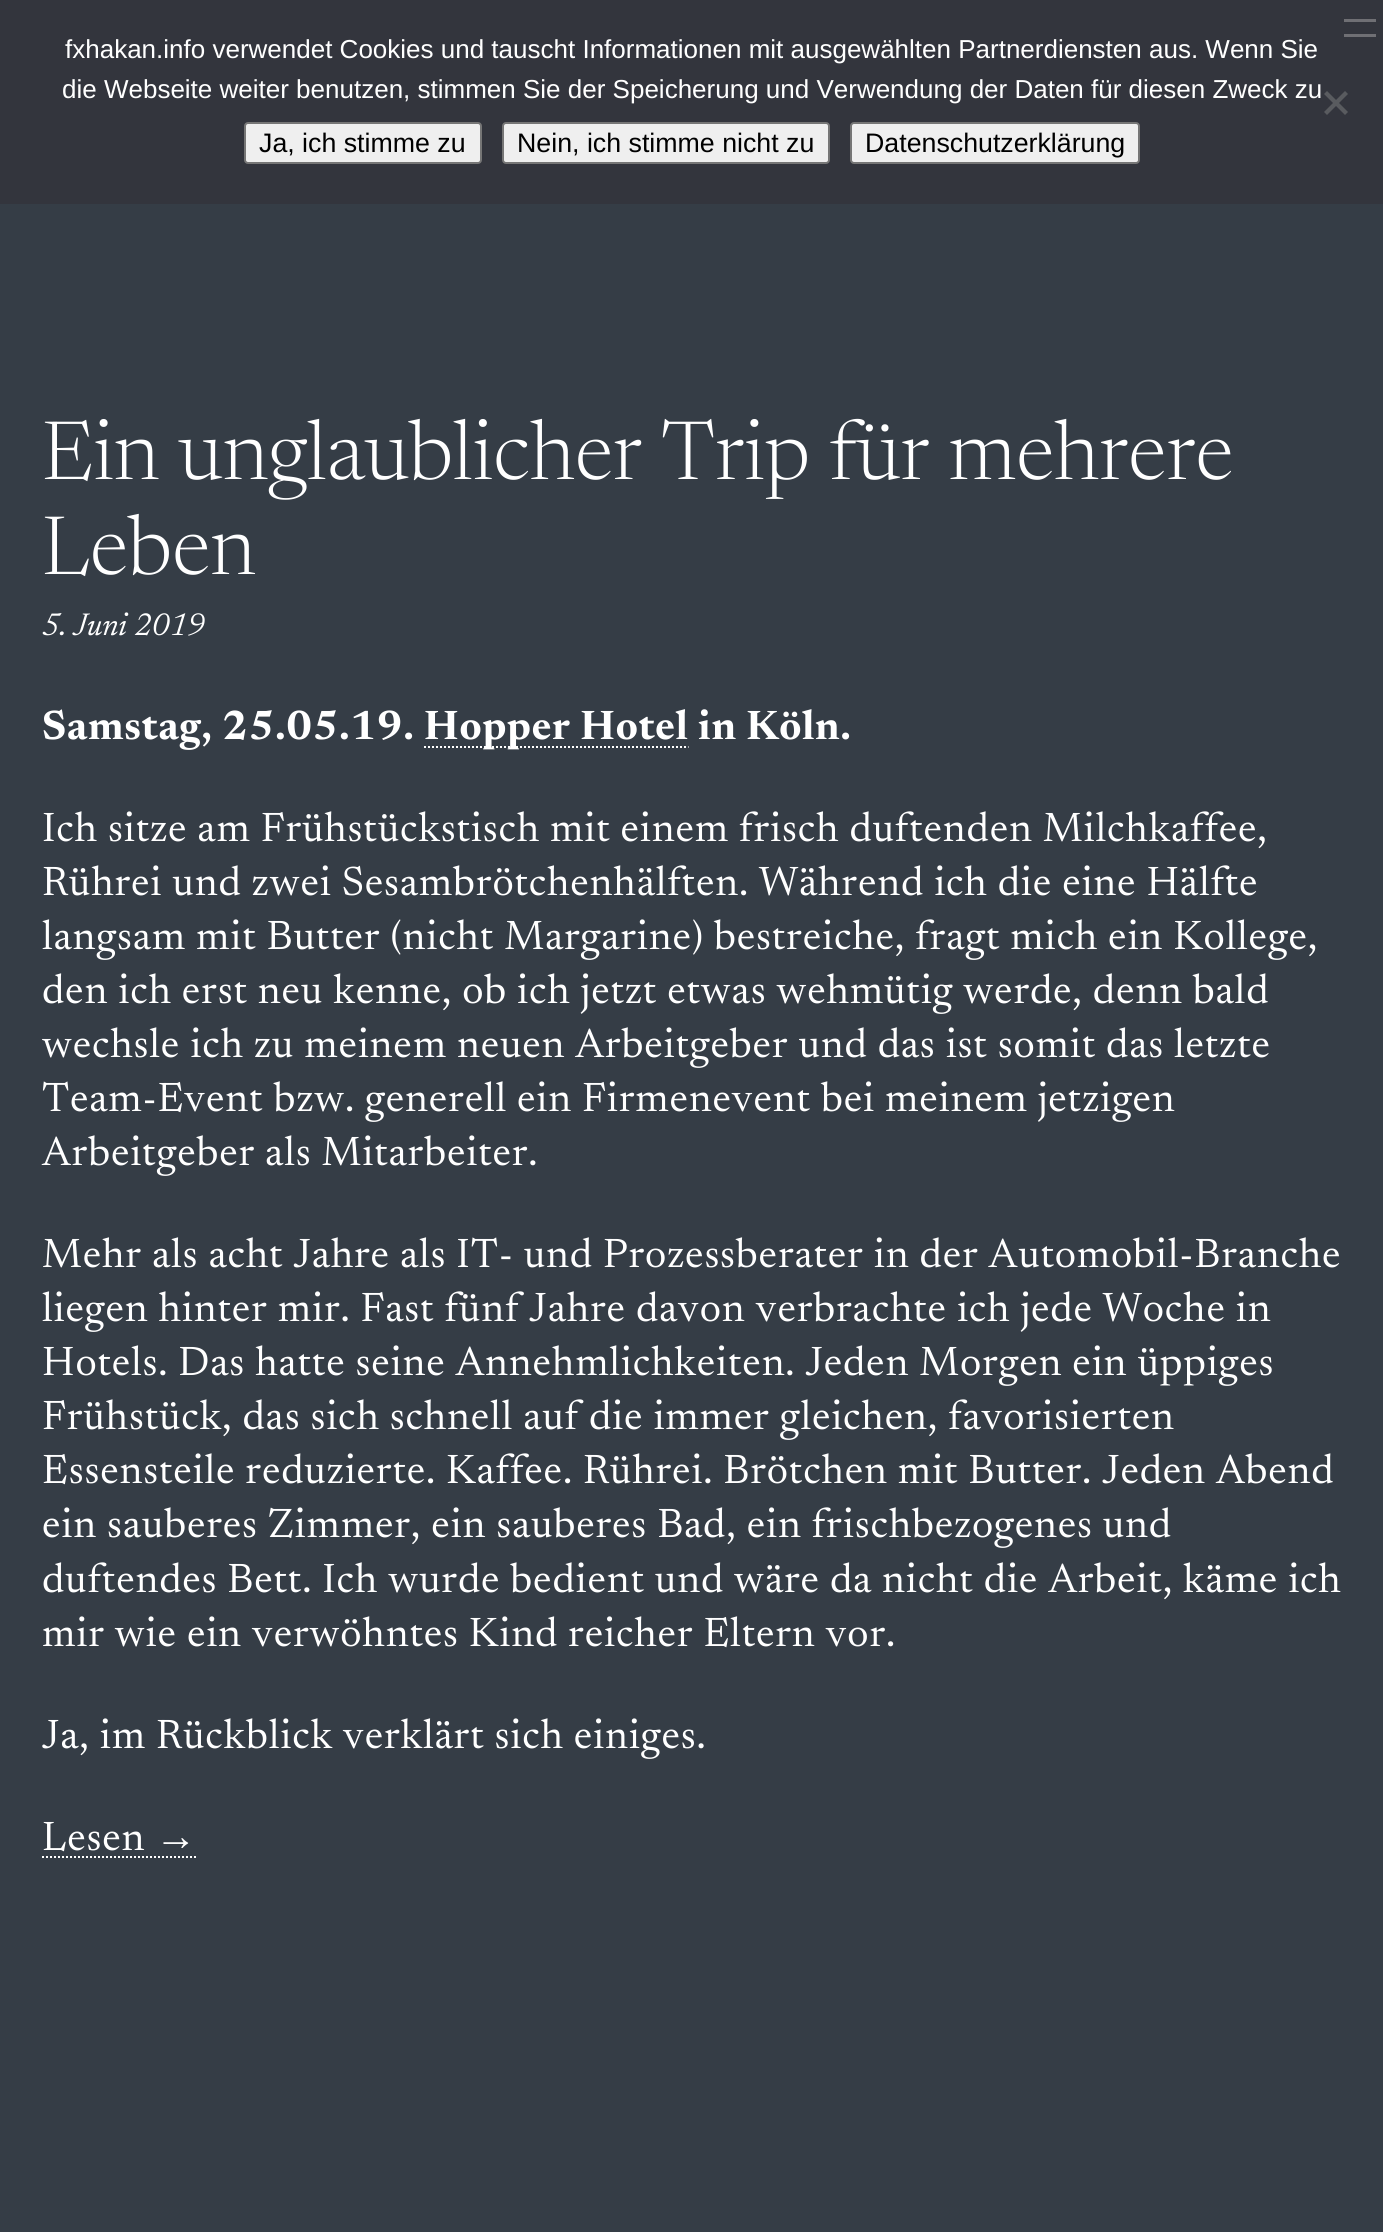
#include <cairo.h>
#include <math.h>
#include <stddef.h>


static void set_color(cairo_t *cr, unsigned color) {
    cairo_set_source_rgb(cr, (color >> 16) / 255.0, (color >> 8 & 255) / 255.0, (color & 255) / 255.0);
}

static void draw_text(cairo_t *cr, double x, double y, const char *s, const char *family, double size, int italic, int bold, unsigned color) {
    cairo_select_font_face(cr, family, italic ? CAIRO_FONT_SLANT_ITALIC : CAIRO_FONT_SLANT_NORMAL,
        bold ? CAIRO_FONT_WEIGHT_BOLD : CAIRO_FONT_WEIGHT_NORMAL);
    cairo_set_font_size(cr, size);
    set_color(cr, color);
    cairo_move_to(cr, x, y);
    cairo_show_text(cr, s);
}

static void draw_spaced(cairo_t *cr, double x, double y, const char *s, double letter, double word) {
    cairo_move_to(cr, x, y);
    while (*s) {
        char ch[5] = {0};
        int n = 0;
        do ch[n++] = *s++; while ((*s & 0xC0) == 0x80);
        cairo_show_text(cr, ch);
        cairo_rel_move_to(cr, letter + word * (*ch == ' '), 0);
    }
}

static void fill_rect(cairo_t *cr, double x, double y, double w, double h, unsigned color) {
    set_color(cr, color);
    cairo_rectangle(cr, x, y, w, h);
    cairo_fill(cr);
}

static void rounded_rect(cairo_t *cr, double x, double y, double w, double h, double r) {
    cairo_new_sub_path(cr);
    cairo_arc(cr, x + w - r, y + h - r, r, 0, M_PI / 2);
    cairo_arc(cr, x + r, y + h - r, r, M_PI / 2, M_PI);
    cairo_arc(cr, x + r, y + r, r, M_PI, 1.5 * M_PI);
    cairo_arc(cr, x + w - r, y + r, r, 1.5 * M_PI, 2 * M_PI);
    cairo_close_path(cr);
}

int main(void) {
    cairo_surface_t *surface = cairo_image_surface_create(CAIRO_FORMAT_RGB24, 1383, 2232);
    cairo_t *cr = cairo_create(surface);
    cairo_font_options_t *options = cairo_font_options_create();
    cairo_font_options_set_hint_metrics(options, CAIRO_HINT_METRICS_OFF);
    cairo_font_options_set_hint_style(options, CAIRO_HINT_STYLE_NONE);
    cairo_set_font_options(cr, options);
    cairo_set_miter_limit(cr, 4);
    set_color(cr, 0x353D46);
    cairo_paint(cr);
    fill_rect(cr, 1344, 19, 32, 3, 0xFFFFFF);
    fill_rect(cr, 1344, 34, 32, 3, 0xFFFFFF);
    cairo_set_source_rgba(cr, 0.196, 0.196, 0.227, 0.7);
    cairo_rectangle(cr, 0, 0, 1383, 204);
    cairo_fill(cr);
    draw_text(cr, 65, 58, "fxhakan.info verwendet Cookies und tauscht Informationen mit ausgewählten Partnerdiensten aus. Wenn Sie", "Liberation Sans", 26, 0, 0, 0xFFFFFF);
    draw_text(cr, 62, 98, "die Webseite weiter benutzen, stimmen Sie der Speicherung und Verwendung der Daten für diesen Zweck zu", "Liberation Sans", 26, 0, 0, 0xFFFFFF);
    set_color(cr, 0x595B5F);
    cairo_new_path(cr);
    cairo_move_to(cr, 1345, 91);
    cairo_line_to(cr, 1348, 94);
    cairo_line_to(cr, 1327, 115);
    cairo_line_to(cr, 1324, 112);
    cairo_close_path(cr);
    cairo_fill(cr);
    cairo_new_path(cr);
    cairo_move_to(cr, 1324, 94);
    cairo_line_to(cr, 1327, 91);
    cairo_line_to(cr, 1348, 112);
    cairo_line_to(cr, 1345, 115);
    cairo_close_path(cr);
    cairo_fill(cr);
    set_color(cr, 0xEFEFEF);
    rounded_rect(cr, 245, 123, 236, 40, 3);
    cairo_fill_preserve(cr);
    set_color(cr, 0x767676);
    cairo_stroke(cr);
    draw_text(cr, 259, 152, "Ja, ich stimme zu", "Liberation Sans", 26.75, 0, 0, 0x000000);
    set_color(cr, 0xEFEFEF);
    rounded_rect(cr, 503, 123, 326, 40, 3);
    cairo_fill_preserve(cr);
    set_color(cr, 0x767676);
    cairo_stroke(cr);
    draw_text(cr, 517, 152, "Nein, ich stimme nicht zu", "Liberation Sans", 26.75, 0, 0, 0x000000);
    set_color(cr, 0xEFEFEF);
    rounded_rect(cr, 851, 123, 288, 40, 3);
    cairo_fill_preserve(cr);
    set_color(cr, 0x767676);
    cairo_stroke(cr);
    draw_text(cr, 865, 152, "Datenschutzerklärung", "Liberation Sans", 26.75, 0, 0, 0x000000);
    draw_text(cr, 42, 479, "Ein unglaublicher Trip für mehrere", "Newsreader Light", 83, 0, 0, 0xFFFFFF);
    draw_text(cr, 42, 574, "Leben", "Newsreader Light", 83, 0, 0, 0xFFFFFF);
    draw_text(cr, 42, 635, "5. Juni 2019", "Newsreader", 32, 1, 0, 0xFFFFFF);
    cairo_select_font_face(cr, "Newsreader", CAIRO_FONT_SLANT_NORMAL, CAIRO_FONT_WEIGHT_BOLD);
    cairo_set_font_size(cr, 41.6);
    draw_spaced(cr, 42, 739, "Samstag, 25.05.19.", 0.8, 0);
    cairo_new_path(cr);
    cairo_move_to(cr, 424, 747);
    cairo_line_to(cr, 688.5, 747);
    cairo_set_dash(cr, (double[]){2, 2}, 2, 0);
    cairo_stroke(cr);
    draw_spaced(cr, 424, 739, "Hopper Hotel in Köln.", 0.8, 0);
    cairo_select_font_face(cr, "Newsreader", CAIRO_FONT_SLANT_NORMAL, CAIRO_FONT_WEIGHT_NORMAL);
    draw_spaced(cr, 42, 841, "Ich sitze am Frühstückstisch mit einem frisch duftenden Milchkaffee,", 0.8, 0);
    draw_spaced(cr, 42, 895, "Rührei und zwei Sesambrötchenhälften. Während ich die eine Hälfte", 0.8, 0);
    draw_spaced(cr, 42, 949, "langsam mit Butter (nicht Margarine) bestreiche, fragt mich ein Kollege,", 0.8, 0);
    draw_spaced(cr, 42, 1003, "den ich erst neu kenne, ob ich jetzt etwas wehmütig werde, denn bald", 0.8, 0);
    draw_spaced(cr, 42, 1057, "wechsle ich zu meinem neuen Arbeitgeber und das ist somit das letzte", 0.8, 0);
    draw_spaced(cr, 42, 1111, "Team-Event bzw. generell ein Firmenevent bei meinem jetzigen", 0.8, 0);
    draw_spaced(cr, 42, 1165, "Arbeitgeber als Mitarbeiter.", 0.8, 0);
    draw_spaced(cr, 42, 1267, "Mehr als acht Jahre als IT- und Prozessberater in der Automobil-Branche", 0.8, 0);
    draw_spaced(cr, 42, 1321, "liegen hinter mir. Fast fünf Jahre davon verbrachte ich jede Woche in", 0.8, 0);
    draw_spaced(cr, 42, 1375, "Hotels. Das hatte seine Annehmlichkeiten. Jeden Morgen ein üppiges", 0.8, 0);
    draw_spaced(cr, 42, 1429, "Frühstück, das sich schnell auf die immer gleichen, favorisierten", 0.8, 0);
    draw_spaced(cr, 42, 1483, "Essensteile reduzierte. Kaffee. Rührei. Brötchen mit Butter. Jeden Abend", 0.8, 0);
    draw_spaced(cr, 42, 1537, "ein sauberes Zimmer, ein sauberes Bad, ein frischbezogenes und", 0.8, 0);
    draw_spaced(cr, 42, 1592, "duftendes Bett. Ich wurde bedient und wäre da nicht die Arbeit, käme ich", 0.8, 0);
    draw_spaced(cr, 42, 1646, "mir wie ein verwöhntes Kind reicher Eltern vor.", 0.8, 0);
    draw_spaced(cr, 42, 1748, "Ja, im Rückblick verklärt sich einiges.", 0.8, 0);
    draw_spaced(cr, 42, 1850, "Lesen", 0.8, 0);
    cairo_select_font_face(cr, "Liberation Serif", CAIRO_FONT_SLANT_NORMAL, CAIRO_FONT_WEIGHT_NORMAL);
    draw_spaced(cr, 155, 1850, "→", 0.8, 0);
    cairo_new_path(cr);
    cairo_move_to(cr, 42, 1857);
    cairo_line_to(cr, 197.5, 1857);
    cairo_stroke(cr);
    cairo_surface_write_to_png(surface, "output.png");
    cairo_font_options_destroy(options);
    cairo_destroy(cr);
    cairo_surface_destroy(surface);
    return 0;
}
